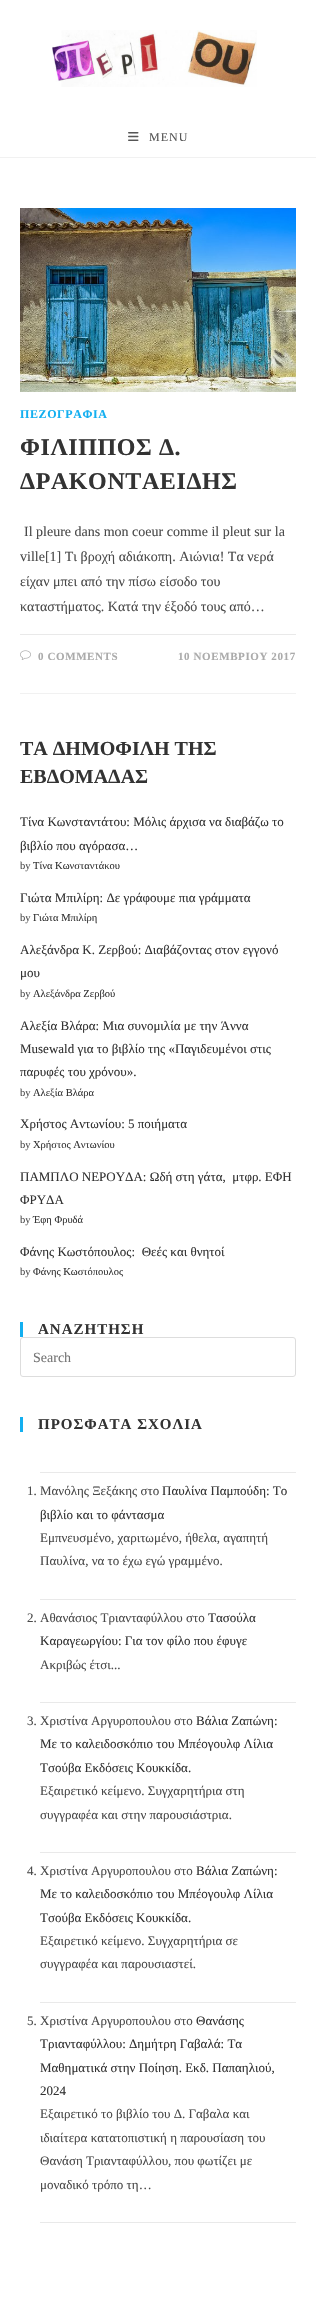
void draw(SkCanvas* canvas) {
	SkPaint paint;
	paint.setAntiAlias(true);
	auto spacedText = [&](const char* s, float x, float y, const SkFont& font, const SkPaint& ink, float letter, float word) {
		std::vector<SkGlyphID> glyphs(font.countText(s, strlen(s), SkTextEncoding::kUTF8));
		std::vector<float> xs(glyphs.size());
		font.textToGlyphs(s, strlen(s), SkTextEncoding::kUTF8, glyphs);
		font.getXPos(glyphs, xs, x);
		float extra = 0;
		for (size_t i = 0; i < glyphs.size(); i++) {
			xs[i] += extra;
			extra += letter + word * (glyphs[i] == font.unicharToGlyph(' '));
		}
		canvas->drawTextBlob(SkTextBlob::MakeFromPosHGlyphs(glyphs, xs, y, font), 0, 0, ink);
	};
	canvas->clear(0xffffffff);
	paint.setColor(0xfff1f1f1);
	canvas->drawRect(SkRect::MakeXYWH(0, 157, 316, 1), paint);
	canvas->drawImageRect(SkImages::DeferredFromEncodedData(SkData::MakeFromFileName("img1.png")), SkRect::MakeXYWH(52, 30, 205, 57), SkSamplingOptions());
	canvas->drawImageRect(SkImages::DeferredFromEncodedData(SkData::MakeFromFileName("img2.png")), SkRect::MakeXYWH(128, 132, 11, 9), SkSamplingOptions());
	SkFont f1(fontMgr->matchFamilyStyle("Tinos", SkFontStyle::Normal()), 12);
	f1.setSubpixel(true);
	paint.setColor(0xff555555);
	spacedText("MENU", 149, 141, f1, paint, 1, 0);
	paint.setColor(0xfff1f1f1);
	canvas->drawRect(SkRect::MakeXYWH(20, 693, 276, 1), paint);
	canvas->drawImageRect(SkImages::DeferredFromEncodedData(SkData::MakeFromFileName("img3.png")), SkRect::MakeXYWH(20, 208, 276, 184), SkSamplingOptions());
	SkFont f2(fontMgr->matchFamilyStyle("Tinos", SkFontStyle::Bold()), 12);
	f2.setSubpixel(true);
	paint.setColor(0xff13aff0);
	spacedText("ΠΕΖΟΓΡΑΦΙΑ", 20, 418, f2, paint, 0.6, 0);
	SkFont f3(fontMgr->matchFamilyStyle("Tinos", SkFontStyle::Bold()), 24);
	f3.setSubpixel(true);
	paint.setColor(0xff333333);
	spacedText("ΦΙΛΙΠΠΟΣ Δ.", 20, 455, f3, paint, 0.6, 0);
	spacedText("ΔΡΑΚΟΝΤΑΕΙΔΗΣ", 20, 489, f3, paint, 0.6, 0);
	SkFont f4(fontMgr->matchFamilyStyle("Tinos", SkFontStyle::Normal()), 14);
	f4.setSubpixel(true);
	paint.setColor(0xff4a4a4a);
	canvas->drawString("Il pleure dans mon coeur comme il pleut sur la", 24, 536, f4, paint);
	canvas->drawString("ville[1] Τι βροχή αδιάκοπη. Αιώνια! Τα νερά", 20, 561, f4, paint);
	canvas->drawString("είχαν μπει από την πίσω είσοδο του", 20, 586, f4, paint);
	canvas->drawString("καταστήματος. Κατά την έξοδό τους από…", 20, 611, f4, paint);
	paint.setColor(0xffe9e9e9);
	canvas->drawRect(SkRect::MakeXYWH(20, 634, 276, 1), paint);
	canvas->drawImageRect(SkImages::DeferredFromEncodedData(SkData::MakeFromFileName("img4.png")), SkRect::MakeXYWH(20, 650, 11, 10), SkSamplingOptions());
	SkFont f5(fontMgr->matchFamilyStyle("Tinos", SkFontStyle::Bold()), 11);
	f5.setSubpixel(true);
	paint.setColor(0xffababab);
	spacedText("0 COMMENTS", 38, 660, f5, paint, 0.6, 0);
	spacedText("10 ΝΟΕΜΒΡΙΟΥ 2017", 178, 660, f5, paint, 0.6, 0);
	SkFont f6(fontMgr->matchFamilyStyle("Tinos", SkFontStyle::Bold()), 20);
	f6.setSubpixel(true);
	paint.setColor(0xff333333);
	canvas->drawString("ΤΑ ΔΗΜΟΦΙΛΗ ΤΗΣ", 20, 755, f6, paint);
	canvas->drawString("ΕΒΔΟΜΑΔΑΣ", 20, 783, f6, paint);
	SkFont f7(fontMgr->matchFamilyStyle("Tinos", SkFontStyle::Normal()), 13);
	f7.setSubpixel(true);
	canvas->drawString("Τίνα Κωνσταντάτου: Μόλις άρχισα να διαβάζω το", 20, 826, f7, paint);
	canvas->drawString("βιβλίο που αγόρασα…", 20, 850, f7, paint);
	SkFont f8(fontMgr->matchFamilyStyle("Tinos", SkFontStyle::Normal()), 10.5);
	f8.setSubpixel(true);
	paint.setColor(0xff4a4a4a);
	canvas->drawString("by", 20, 869, f8, paint);
	paint.setColor(0xff333333);
	canvas->drawString("Τίνα Κωνσταντάκου", 33, 869, f8, paint);
	canvas->drawString("Γιώτα Μπιλίρη: Δε γράφουμε πια γράμματα", 20, 902, f7, paint);
	paint.setColor(0xff4a4a4a);
	canvas->drawString("by", 20, 921, f8, paint);
	paint.setColor(0xff333333);
	canvas->drawString("Γιώτα Μπιλίρη", 33, 921, f8, paint);
	canvas->drawString("Αλεξάνδρα Κ. Ζερβού: Διαβάζοντας στον εγγονό", 20, 954, f7, paint);
	canvas->drawString("μου", 20, 977, f7, paint);
	paint.setColor(0xff4a4a4a);
	canvas->drawString("by", 20, 997, f8, paint);
	paint.setColor(0xff333333);
	canvas->drawString("Αλεξάνδρα Ζερβού", 33, 997, f8, paint);
	canvas->drawString("Αλεξία Βλάρα: Μια συνομιλία με την Άννα", 20, 1030, f7, paint);
	canvas->drawString("Musewald για το βιβλίο της «Παγιδευμένοι στις", 20, 1053, f7, paint);
	canvas->drawString("παρυφές του χρόνου».", 20, 1076, f7, paint);
	paint.setColor(0xff4a4a4a);
	canvas->drawString("by", 20, 1096, f8, paint);
	paint.setColor(0xff333333);
	canvas->drawString("Αλεξία Βλάρα", 33, 1096, f8, paint);
	canvas->drawString("Χρήστος Αντωνίου: 5 ποιήματα", 20, 1128, f7, paint);
	paint.setColor(0xff4a4a4a);
	canvas->drawString("by", 20, 1148, f8, paint);
	paint.setColor(0xff333333);
	canvas->drawString("Χρήστος Αντωνίου", 33, 1148, f8, paint);
	canvas->drawString("ΠΑΜΠΛΟ ΝΕΡΟΥΔΑ: Ωδή στη γάτα,  μτφρ. ΕΦΗ", 20, 1181, f7, paint);
	canvas->drawString("ΦΡΥΔΑ", 20, 1204, f7, paint);
	paint.setColor(0xff4a4a4a);
	canvas->drawString("by", 20, 1223, f8, paint);
	paint.setColor(0xff333333);
	canvas->drawString("Έφη Φρυδά", 33, 1223, f8, paint);
	canvas->drawString("Φάνης Κωστόπουλος:  Θεές και θνητοί", 20, 1256, f7, paint);
	paint.setColor(0xff4a4a4a);
	canvas->drawString("by", 20, 1275, f8, paint);
	paint.setColor(0xff333333);
	canvas->drawString("Φάνης Κωστόπουλος", 33, 1275, f8, paint);
	paint.setColor(0xff13aff0);
	canvas->drawRect(SkRect::MakeXYWH(20, 1322, 3, 15), paint);
	SkFont f9(fontMgr->matchFamilyStyle("Tinos", SkFontStyle::Bold()), 15);
	f9.setSubpixel(true);
	paint.setColor(0xff333333);
	spacedText("ΑΝΑΖΗΤΗΣΗ", 38, 1334, f9, paint, 1, 0);
	paint.setStroke(true);
	paint.setStrokeWidth(1);
	paint.setColor(0xffdddddd);
	canvas->drawRoundRect(SkRect::MakeXYWH(20.5, 1337.5, 275, 39), 2.5, 2.5, paint);
	paint.setStroke(false);
	paint.setColor(0xff757575);
	canvas->drawString("Search", 33, 1362, f4, paint);
	paint.setColor(0xff13aff0);
	canvas->drawRect(SkRect::MakeXYWH(20, 1417, 3, 15), paint);
	paint.setColor(0xff333333);
	spacedText("ΠΡΟΣΦΑΤΑ ΣΧΟΛΙΑ", 38, 1429, f9, paint, 1, 0);
	paint.setColor(0xffe9e9e9);
	canvas->drawRect(SkRect::MakeXYWH(40, 1472, 256, 1), paint);
	canvas->drawRect(SkRect::MakeXYWH(40, 1599, 256, 1), paint);
	paint.setColor(0xff4a4a4a);
	canvas->drawString("1. Μανόλης Ξεξάκης στο", 27, 1495, f7, paint);
	paint.setColor(0xff333333);
	canvas->drawString("Παυλίνα Παμπούδη: Το", 162, 1495, f7, paint);
	canvas->drawString("βιβλίο και το φάντασμα", 40, 1519, f7, paint);
	paint.setColor(0xff4a4a4a);
	canvas->drawString("Εμπνευσμένο, χαριτωμένο, ήθελα, αγαπητή", 40, 1542, f7, paint);
	canvas->drawString("Παυλίνα, να το έχω εγώ γραμμένο.", 40, 1565, f7, paint);
	paint.setColor(0xffe9e9e9);
	canvas->drawRect(SkRect::MakeXYWH(40, 1702, 256, 1), paint);
	paint.setColor(0xff4a4a4a);
	canvas->drawString("2. Αθανάσιος Τριανταφύλλου στο", 27, 1622, f7, paint);
	paint.setColor(0xff333333);
	canvas->drawString("Τασούλα", 208, 1622, f7, paint);
	canvas->drawString("Καραγεωργίου: Για τον φίλο που έφυγε", 40, 1645, f7, paint);
	paint.setColor(0xff4a4a4a);
	canvas->drawString("Ακριβώς έτσι...", 40, 1669, f7, paint);
	paint.setColor(0xffe9e9e9);
	canvas->drawRect(SkRect::MakeXYWH(40, 1852, 256, 1), paint);
	paint.setColor(0xff4a4a4a);
	canvas->drawString("3. Χριστίνα Αργυροπουλου στο", 27, 1725, f7, paint);
	paint.setColor(0xff333333);
	canvas->drawString("Βάλια Ζαπώνη:", 196, 1725, f7, paint);
	canvas->drawString("Με το καλειδοσκόπιο του Μπέογουλφ Λίλια", 40, 1748, f7, paint);
	canvas->drawString("Τσούβα Εκδόσεις Κουκκίδα.", 40, 1772, f7, paint);
	paint.setColor(0xff4a4a4a);
	canvas->drawString("Εξαιρετικό κείμενο. Συγχαρητήρια στη", 40, 1795, f7, paint);
	canvas->drawString("συγγραφέα και στην παρουσιάστρια.", 40, 1819, f7, paint);
	paint.setColor(0xffe9e9e9);
	canvas->drawRect(SkRect::MakeXYWH(40, 2002, 256, 1), paint);
	paint.setColor(0xff4a4a4a);
	canvas->drawString("4. Χριστίνα Αργυροπουλου στο", 27, 1875, f7, paint);
	paint.setColor(0xff333333);
	canvas->drawString("Βάλια Ζαπώνη:", 196, 1875, f7, paint);
	canvas->drawString("Με το καλειδοσκόπιο του Μπέογουλφ Λίλια", 40, 1898, f7, paint);
	canvas->drawString("Τσούβα Εκδόσεις Κουκκίδα.", 40, 1922, f7, paint);
	paint.setColor(0xff4a4a4a);
	canvas->drawString("Εξαιρετικό κείμενο. Συγχαρητήρια σε", 40, 1945, f7, paint);
	canvas->drawString("συγγραφέα και παρουσιαστεί.", 40, 1968, f7, paint);
	paint.setColor(0xffe9e9e9);
	canvas->drawRect(SkRect::MakeXYWH(40, 2222, 256, 1), paint);
	paint.setColor(0xff4a4a4a);
	canvas->drawString("5. Χριστίνα Αργυροπουλου στο", 27, 2025, f7, paint);
	paint.setColor(0xff333333);
	canvas->drawString("Θανάσης", 196, 2025, f7, paint);
	canvas->drawString("Τριανταφύλλου: Δημήτρη Γαβαλά: Τα", 40, 2048, f7, paint);
	canvas->drawString("Μαθηματικά στην Ποίηση. Εκδ. Παπαηλιού,", 40, 2072, f7, paint);
	canvas->drawString("2024", 40, 2095, f7, paint);
	paint.setColor(0xff4a4a4a);
	canvas->drawString("Εξαιρετικό το βιβλίο του Δ. Γαβαλα και", 40, 2118, f7, paint);
	canvas->drawString("ιδιαίτερα κατατοπιστική η παρουσίαση του", 40, 2142, f7, paint);
	canvas->drawString("Θανάση Τριανταφύλλου, που φωτίζει με", 40, 2165, f7, paint);
	canvas->drawString("μοναδικό τρόπο τη…", 40, 2189, f7, paint);
}
